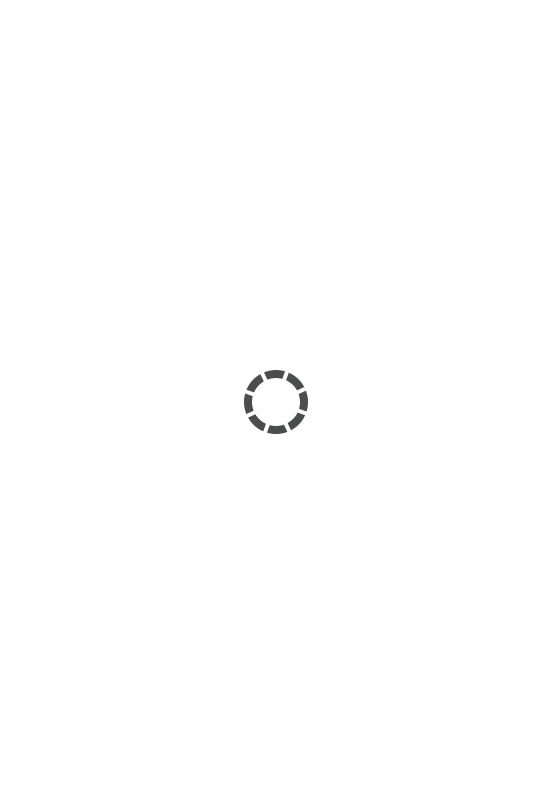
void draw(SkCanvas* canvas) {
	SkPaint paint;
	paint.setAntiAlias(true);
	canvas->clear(0xffffffff);
	canvas->drawImageRect(SkImages::DeferredFromEncodedData(SkData::MakeFromFileName("img1.png")), SkRect::MakeXYWH(244, 370, 64, 64), SkSamplingOptions());
}
